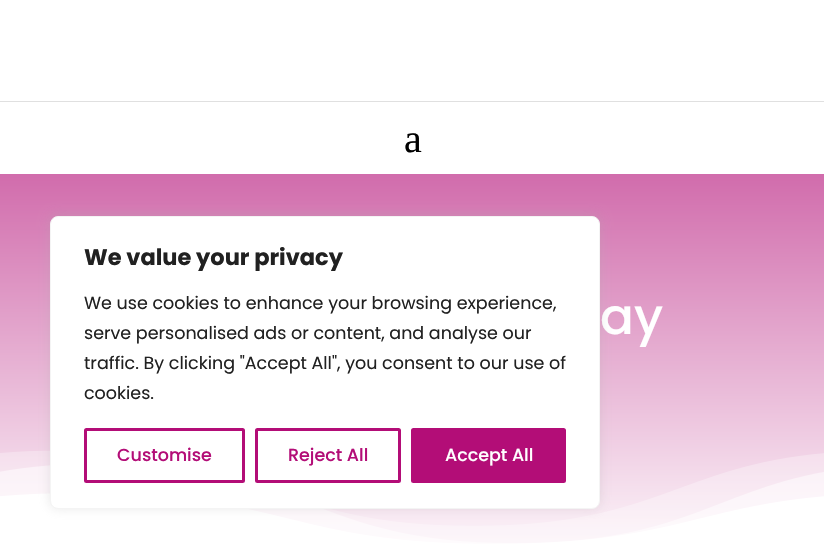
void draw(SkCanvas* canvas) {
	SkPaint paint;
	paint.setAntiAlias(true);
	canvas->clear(0xffffffff);
	paint.setColor(0xffe0e0e0);
	canvas->drawRect(SkRect::MakeXYWH(0, 101, 824, 1), paint);
	SkFont f1(fontMgr->matchFamilyStyle("Liberation Serif", SkFontStyle::Normal()), 40);
	f1.setSubpixel(true);
	paint.setColor(0xff000000);
	canvas->drawString("a", 404, 152, f1, paint);
	{
		const SkColor colors[] = {0xffd16cac, 0xffffffff};
		const float stops[] = {0, 1};
		const SkPoint ends[] = {{413, 174}, {413, 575}};
		paint.setShader(SkGradientShader::MakeLinear(ends, colors, stops, 2, SkTileMode::kClamp));
		paint.setAlpha(255);
	}
	canvas->drawRect(SkRect::MakeXYWH(0, 174, 824, 370), paint);
	SkFont f2(fontMgr->matchFamilyStyle("Poppins", SkFontStyle(500, SkFontStyle::kNormal_Width, SkFontStyle::kUpright_Slant)), 50);
	f2.setSubpixel(true);
	paint.setShader(nullptr);
	paint.setColor(0xffffffff);
	canvas->drawString("ay", 600, 334, f2, paint);
	canvas->drawImageRect(SkImages::DeferredFromEncodedData(SkData::MakeFromFileName("img1.png")), SkRect::MakeXYWH(0, 450, 824, 108), SkSamplingOptions());
	paint.setColor(0x4dacabab);
	paint.setMaskFilter(SkMaskFilter::MakeBlur(kNormal_SkBlurStyle, 6));
	canvas->drawRoundRect(SkRect::MakeXYWH(50, 215, 550, 293), 8, 8, paint);
	paint.setMaskFilter(nullptr);
	paint.setColor(0xffffffff);
	canvas->drawRoundRect(SkRect::MakeXYWH(50.5, 216.5, 549, 292), 7.5, 7.5, paint);
	paint.setStroke(true);
	paint.setStrokeWidth(1);
	paint.setColor(0xfff4f4f4);
	canvas->drawRoundRect(SkRect::MakeXYWH(50.5, 216.5, 549, 292), 7.5, 7.5, paint);
	SkFont f3(fontMgr->matchFamilyStyle("Poppins", SkFontStyle::Bold()), 22.5);
	f3.setSubpixel(true);
	paint.setStroke(false);
	paint.setColor(0xff212121);
	canvas->drawString("We value your privacy", 84, 265, f3, paint);
	SkFont f4(fontMgr->matchFamilyStyle("Poppins", SkFontStyle::Normal()), 17.5);
	f4.setSubpixel(true);
	canvas->drawString("We use cookies to enhance your browsing experience,", 84, 309, f4, paint);
	canvas->drawString("serve personalised ads or content, and analyse our", 84, 339, f4, paint);
	canvas->drawString("traffic. By clicking \"Accept All\", you consent to our use of", 84, 369, f4, paint);
	canvas->drawString("cookies.", 84, 399, f4, paint);
	paint.setStroke(true);
	paint.setStrokeWidth(3);
	paint.setColor(0xffb30d77);
	canvas->drawRoundRect(SkRect::MakeXYWH(85.5, 429.5, 158, 52), 1, 1, paint);
	SkFont f5(fontMgr->matchFamilyStyle("Poppins", SkFontStyle(500, SkFontStyle::kNormal_Width, SkFontStyle::kUpright_Slant)), 17.5);
	f5.setSubpixel(true);
	paint.setStroke(false);
	canvas->drawString("Customise", 117, 461, f5, paint);
	paint.setStroke(true);
	canvas->drawRoundRect(SkRect::MakeXYWH(256.5, 429.5, 143, 52), 1, 1, paint);
	paint.setStroke(false);
	canvas->drawString("Reject All", 288, 461, f5, paint);
	canvas->drawRoundRect(SkRect::MakeXYWH(412.5, 429.5, 152, 52), 1, 1, paint);
	paint.setStroke(true);
	canvas->drawRoundRect(SkRect::MakeXYWH(412.5, 429.5, 152, 52), 1, 1, paint);
	paint.setStroke(false);
	paint.setColor(0xffffffff);
	canvas->drawString("Accept All", 445, 461, f5, paint);
}
